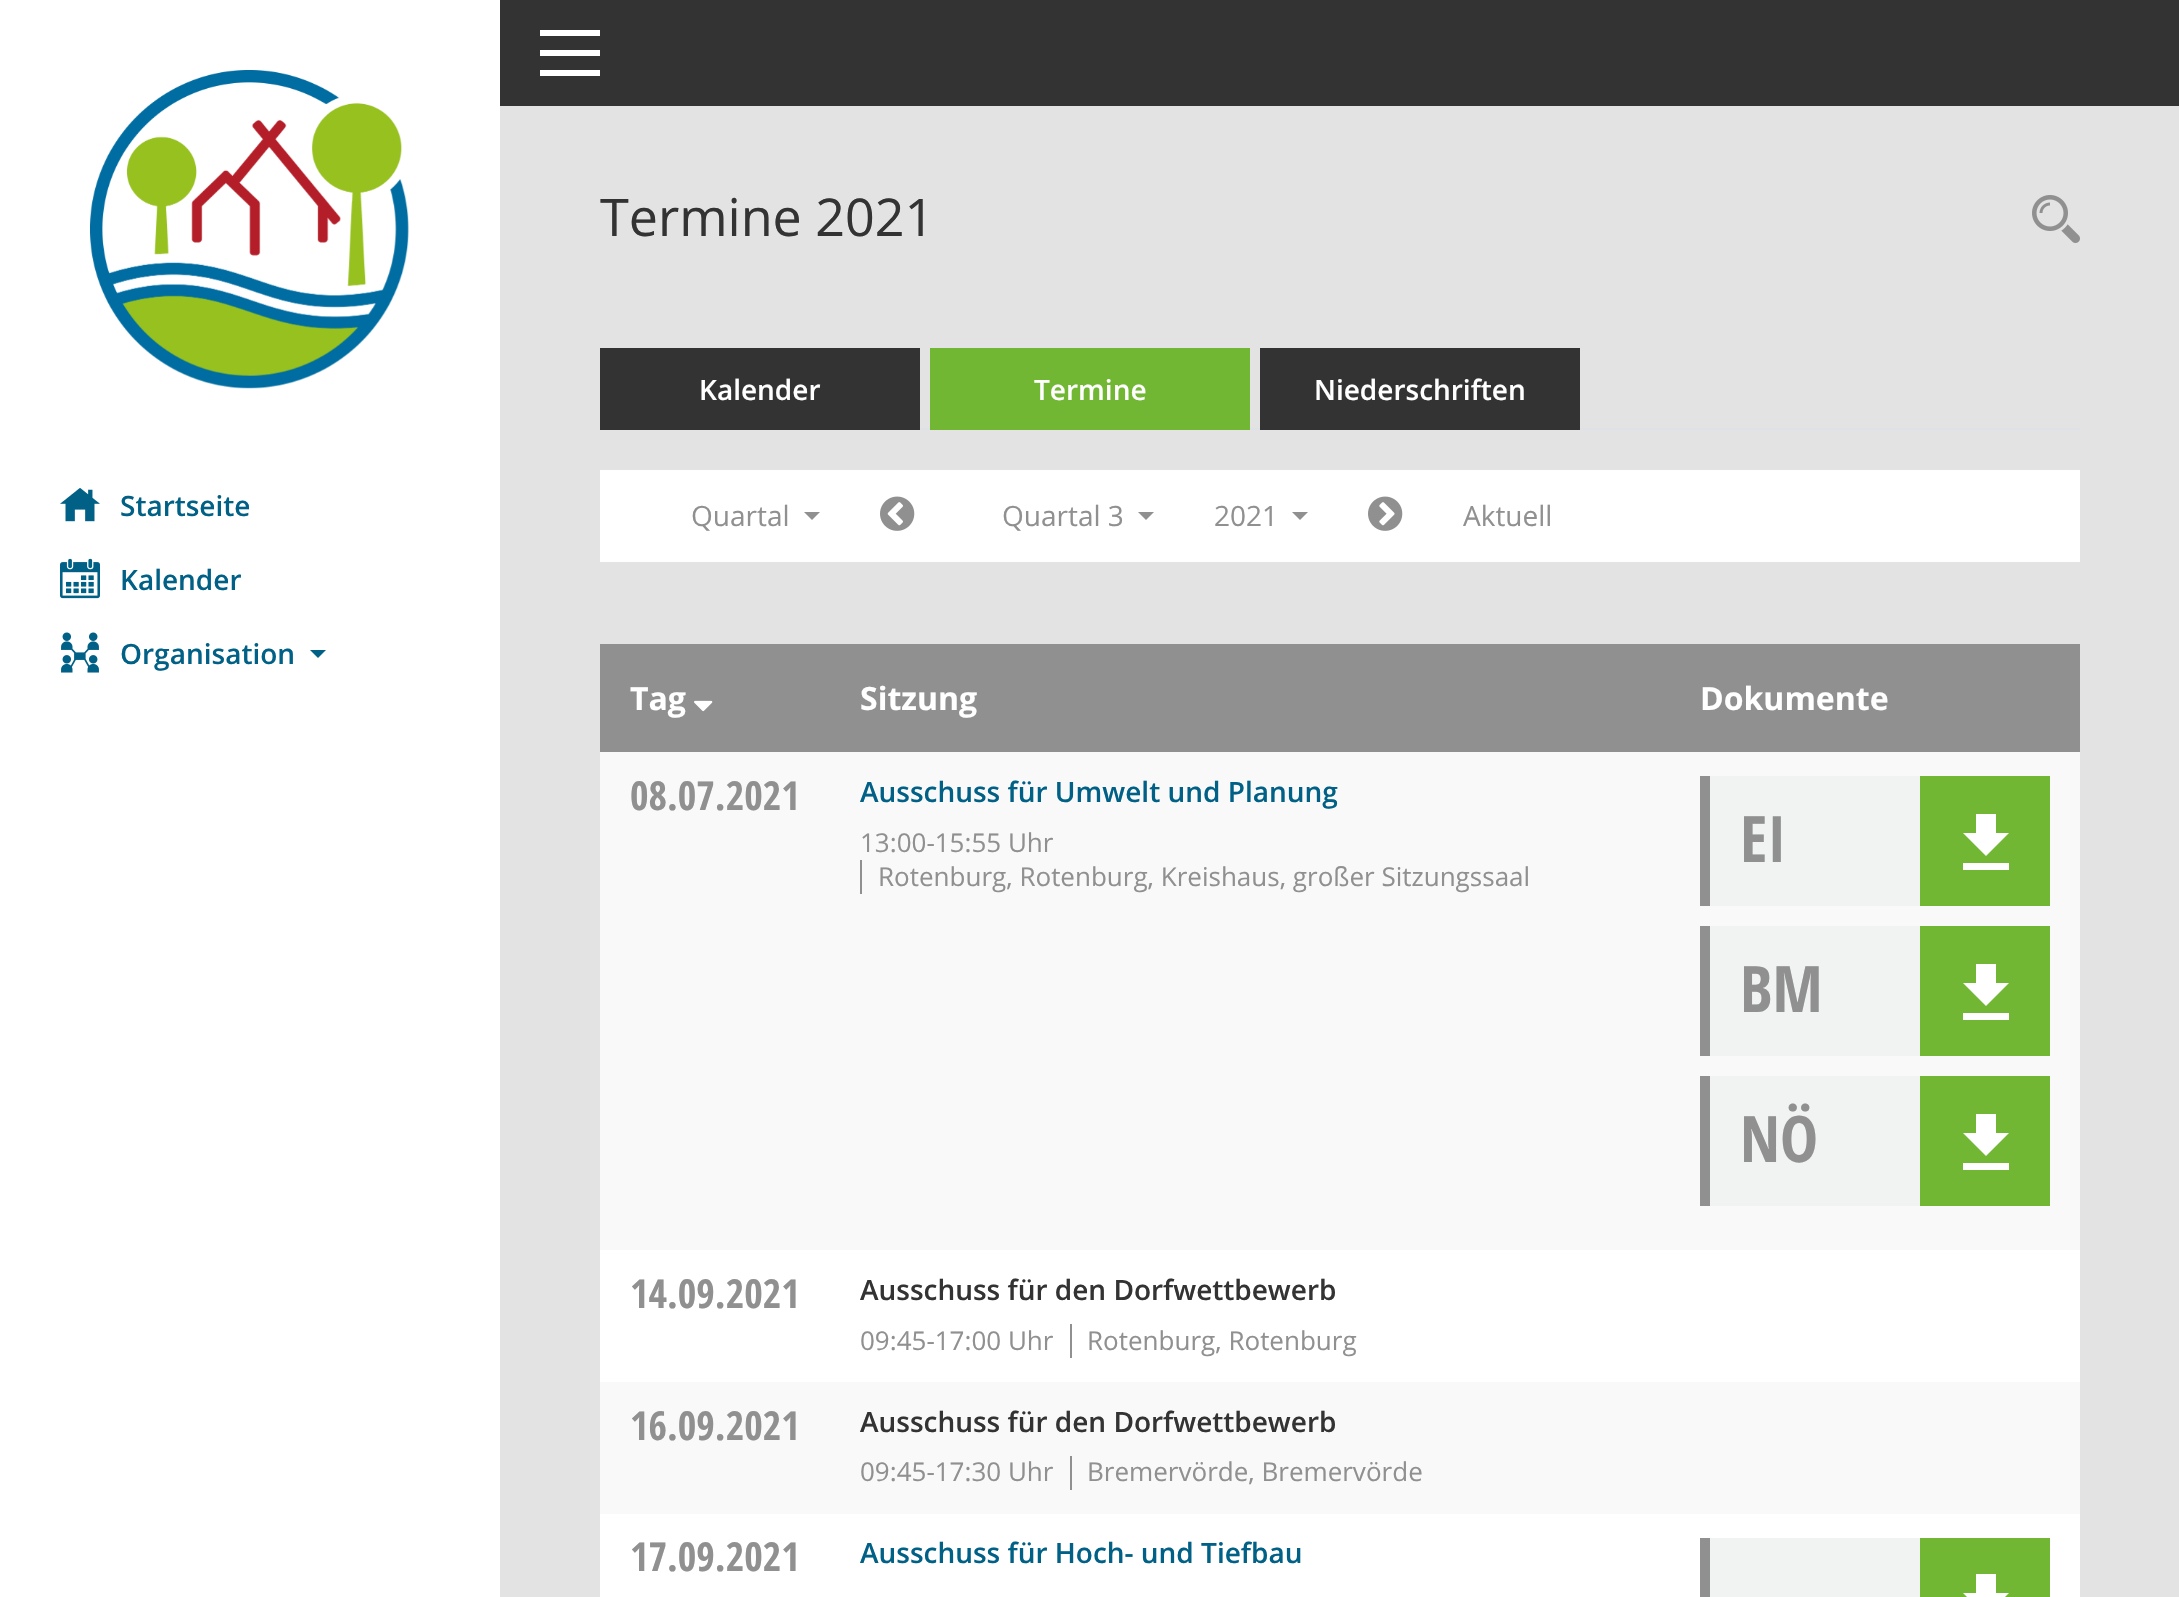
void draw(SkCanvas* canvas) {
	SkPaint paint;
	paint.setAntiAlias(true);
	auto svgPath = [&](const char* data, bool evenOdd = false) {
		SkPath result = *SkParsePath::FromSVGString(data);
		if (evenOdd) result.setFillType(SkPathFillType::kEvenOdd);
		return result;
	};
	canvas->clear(0xffe3e3e3);
	paint.setColor(0xffffffff);
	canvas->drawRect(SkRect::MakeXYWH(0, 0, 500, 1597), paint);
	canvas->drawImageRect(SkImages::DeferredFromEncodedData(SkData::MakeFromFileName("img1.png")), SkRect::MakeXYWH(90, 70, 319, 319), SkSamplingOptions());
	canvas->drawImageRect(SkImages::DeferredFromEncodedData(SkData::MakeFromFileName("img2.png")), SkRect::MakeXYWH(60, 488, 40, 34), SkSamplingOptions());
	SkFont f1(fontMgr->matchFamilyStyle("Open Sans", SkFontStyle(600, SkFontStyle::kNormal_Width, SkFontStyle::kUpright_Slant)), 28);
	f1.setSubpixel(true);
	paint.setColor(0xff006085);
	canvas->drawString("Startseite", 120, 516, f1, paint);
	canvas->drawImageRect(SkImages::DeferredFromEncodedData(SkData::MakeFromFileName("img3.png")), SkRect::MakeXYWH(60, 558, 40, 41), SkSamplingOptions());
	canvas->drawString("Kalender", 120, 590, f1, paint);
	canvas->drawImageRect(SkImages::DeferredFromEncodedData(SkData::MakeFromFileName("img4.png")), SkRect::MakeXYWH(61, 632, 38, 41), SkSamplingOptions());
	canvas->drawString("Organisation", 120, 664, f1, paint);
	canvas->drawPath(svgPath("M310 650H326L318 658Z"), paint);
	paint.setColor(0xff333333);
	canvas->drawRect(SkRect::MakeXYWH(500, 0, 1679, 106), paint);
	paint.setColor(0xffffffff);
	canvas->drawRect(SkRect::MakeXYWH(540, 30, 60, 6), paint);
	canvas->drawRect(SkRect::MakeXYWH(540, 50, 60, 6), paint);
	canvas->drawRect(SkRect::MakeXYWH(540, 70, 60, 6), paint);
	SkFont f2(fontMgr->matchFamilyStyle("Open Sans", SkFontStyle::Normal()), 52);
	f2.setSubpixel(true);
	paint.setColor(0xff333333);
	canvas->drawString("Termine 2021", 600, 236, f2, paint);
	canvas->drawImageRect(SkImages::DeferredFromEncodedData(SkData::MakeFromFileName("img5.png")), SkRect::MakeXYWH(2032, 195, 48, 48), SkSamplingOptions());
	paint.setColor(0xffdee2e6);
	canvas->drawRect(SkRect::MakeXYWH(920, 428, 1160, 2), paint);
	paint.setColor(0xff333333);
	canvas->drawRect(SkRect::MakeXYWH(600, 348, 320, 82), paint);
	paint.setColor(0xffffffff);
	canvas->drawString("Kalender", 699, 400, f1, paint);
	paint.setColor(0xff71b733);
	canvas->drawRect(SkRect::MakeXYWH(930, 348, 320, 82), paint);
	paint.setColor(0xffffffff);
	canvas->drawString("Termine", 1034, 400, f1, paint);
	paint.setColor(0xff333333);
	canvas->drawRect(SkRect::MakeXYWH(1260, 348, 320, 82), paint);
	paint.setColor(0xffffffff);
	canvas->drawString("Niederschriften", 1314, 400, f1, paint);
	canvas->drawRect(SkRect::MakeXYWH(600, 470, 1480, 92), paint);
	SkFont f3(fontMgr->matchFamilyStyle("Open Sans", SkFontStyle::Normal()), 28);
	f3.setSubpixel(true);
	paint.setColor(0xff909090);
	canvas->drawString("Quartal", 691, 526, f3, paint);
	canvas->drawPath(svgPath("M804 512H820L812 520Z"), paint);
	canvas->drawImageRect(SkImages::DeferredFromEncodedData(SkData::MakeFromFileName("img6.png")), SkRect::MakeXYWH(880, 496, 35, 35), SkSamplingOptions());
	canvas->drawString("Quartal 3", 1002, 526, f3, paint);
	canvas->drawPath(svgPath("M1138 512H1154L1146 520Z"), paint);
	canvas->drawString("2021", 1214, 526, f3, paint);
	canvas->drawPath(svgPath("M1292 512H1308L1300 520Z"), paint);
	canvas->drawImageRect(SkImages::DeferredFromEncodedData(SkData::MakeFromFileName("img7.png")), SkRect::MakeXYWH(1368, 496, 35, 35), SkSamplingOptions());
	canvas->drawString("Aktuell", 1463, 526, f3, paint);
	paint.setColor(0xffffffff);
	canvas->drawRect(SkRect::MakeXYWH(600, 1250, 1480, 347), paint);
	paint.setColor(0xff909090);
	canvas->drawRect(SkRect::MakeXYWH(600, 644, 1480, 108), paint);
	SkFont f4(fontMgr->matchFamilyStyle("Open Sans", SkFontStyle::Bold()), 32);
	f4.setSubpixel(true);
	paint.setColor(0xffffffff);
	canvas->drawString("Tag", 630, 710, f4, paint);
	canvas->drawImageRect(SkImages::DeferredFromEncodedData(SkData::MakeFromFileName("img8.png")), SkRect::MakeXYWH(694, 700, 19, 12), SkSamplingOptions());
	canvas->drawString("Sitzung", 860, 710, f4, paint);
	canvas->drawString("Dokumente", 1700, 710, f4, paint);
	paint.setColor(0xfff9f9f9);
	canvas->drawRect(SkRect::MakeXYWH(600, 752, 1480, 498), paint);
	SkFont f5(fontMgr->matchFamilyStyle("Open Sans Condensed", SkFontStyle::Bold()), 40);
	f5.setSubpixel(true);
	paint.setColor(0xff909090);
	canvas->drawString("08.07.2021", 630, 810, f5, paint);
	paint.setColor(0xff006085);
	canvas->drawString("Ausschuss für Umwelt und Planung", 860, 802, f1, paint);
	SkFont f6(fontMgr->matchFamilyStyle("Open Sans", SkFontStyle::Normal()), 26);
	f6.setSubpixel(true);
	paint.setColor(0xff909090);
	canvas->drawString("13:00-15:55 Uhr", 860, 852, f6, paint);
	canvas->drawRect(SkRect::MakeXYWH(860, 860, 2, 34), paint);
	canvas->drawString("Rotenburg, Rotenburg, Kreishaus, großer Sitzungssaal", 878, 886, f6, paint);
	paint.setColor(0xfff0f3f2);
	canvas->drawRect(SkRect::MakeXYWH(1710, 776, 210, 130), paint);
	paint.setColor(0xff909090);
	canvas->drawRect(SkRect::MakeXYWH(1700, 776, 10, 130), paint);
	SkFont f7(fontMgr->matchFamilyStyle("Open Sans Condensed", SkFontStyle::Bold()), 64);
	f7.setSubpixel(true);
	canvas->drawString("EI", 1740, 862, f7, paint);
	paint.setColor(0xff71b733);
	canvas->drawRect(SkRect::MakeXYWH(1920, 776, 130, 130), paint);
	paint.setColor(0xffffffff);
	canvas->drawPath(svgPath("M2009 833H1996V814H1976V833H1963L1986 856ZM1963 863V870H2009V863Z"), paint);
	paint.setColor(0xfff0f3f2);
	canvas->drawRect(SkRect::MakeXYWH(1710, 926, 210, 130), paint);
	paint.setColor(0xff909090);
	canvas->drawRect(SkRect::MakeXYWH(1700, 926, 10, 130), paint);
	canvas->drawString("BM", 1740, 1012, f7, paint);
	paint.setColor(0xff71b733);
	canvas->drawRect(SkRect::MakeXYWH(1920, 926, 130, 130), paint);
	paint.setColor(0xffffffff);
	canvas->drawPath(svgPath("M2009 983H1996V964H1976V983H1963L1986 1006ZM1963 1013V1020H2009V1013Z"), paint);
	paint.setColor(0xfff0f3f2);
	canvas->drawRect(SkRect::MakeXYWH(1710, 1076, 210, 130), paint);
	paint.setColor(0xff909090);
	canvas->drawRect(SkRect::MakeXYWH(1700, 1076, 10, 130), paint);
	canvas->drawString("NÖ", 1740, 1162, f7, paint);
	paint.setColor(0xff71b733);
	canvas->drawRect(SkRect::MakeXYWH(1920, 1076, 130, 130), paint);
	paint.setColor(0xffffffff);
	canvas->drawPath(svgPath("M2009 1133H1996V1114H1976V1133H1963L1986 1156ZM1963 1163V1170H2009V1163Z"), paint);
	paint.setColor(0xff909090);
	canvas->drawString("14.09.2021", 630, 1308, f5, paint);
	paint.setColor(0xff333333);
	canvas->drawString("Ausschuss für den Dorfwettbewerb", 860, 1300, f1, paint);
	paint.setColor(0xff909090);
	canvas->drawString("09:45-17:00 Uhr", 860, 1350, f6, paint);
	canvas->drawRect(SkRect::MakeXYWH(1070, 1324, 2, 34), paint);
	canvas->drawString("Rotenburg, Rotenburg", 1087, 1350, f6, paint);
	paint.setColor(0xfff9f9f9);
	canvas->drawRect(SkRect::MakeXYWH(600, 1382, 1480, 132), paint);
	paint.setColor(0xff909090);
	canvas->drawString("16.09.2021", 630, 1440, f5, paint);
	paint.setColor(0xff333333);
	canvas->drawString("Ausschuss für den Dorfwettbewerb", 860, 1432, f1, paint);
	paint.setColor(0xff909090);
	canvas->drawString("09:45-17:30 Uhr", 860, 1481, f6, paint);
	canvas->drawRect(SkRect::MakeXYWH(1070, 1456, 2, 34), paint);
	canvas->drawString("Bremervörde, Bremervörde", 1087, 1481, f6, paint);
	canvas->drawString("17.09.2021", 630, 1571, f5, paint);
	paint.setColor(0xff006085);
	canvas->drawString("Ausschuss für Hoch- und Tiefbau", 860, 1563, f1, paint);
	paint.setColor(0xfff0f3f2);
	canvas->drawRect(SkRect::MakeXYWH(1710, 1538, 210, 59), paint);
	paint.setColor(0xff909090);
	canvas->drawRect(SkRect::MakeXYWH(1700, 1538, 10, 59), paint);
	paint.setColor(0xff71b733);
	canvas->drawRect(SkRect::MakeXYWH(1920, 1538, 130, 59), paint);
	paint.setColor(0xffffffff);
	canvas->drawPath(svgPath("M2009 1593H1996V1574H1976V1593H1963L1986 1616ZM1963 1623V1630H2009V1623Z"), paint);
}
